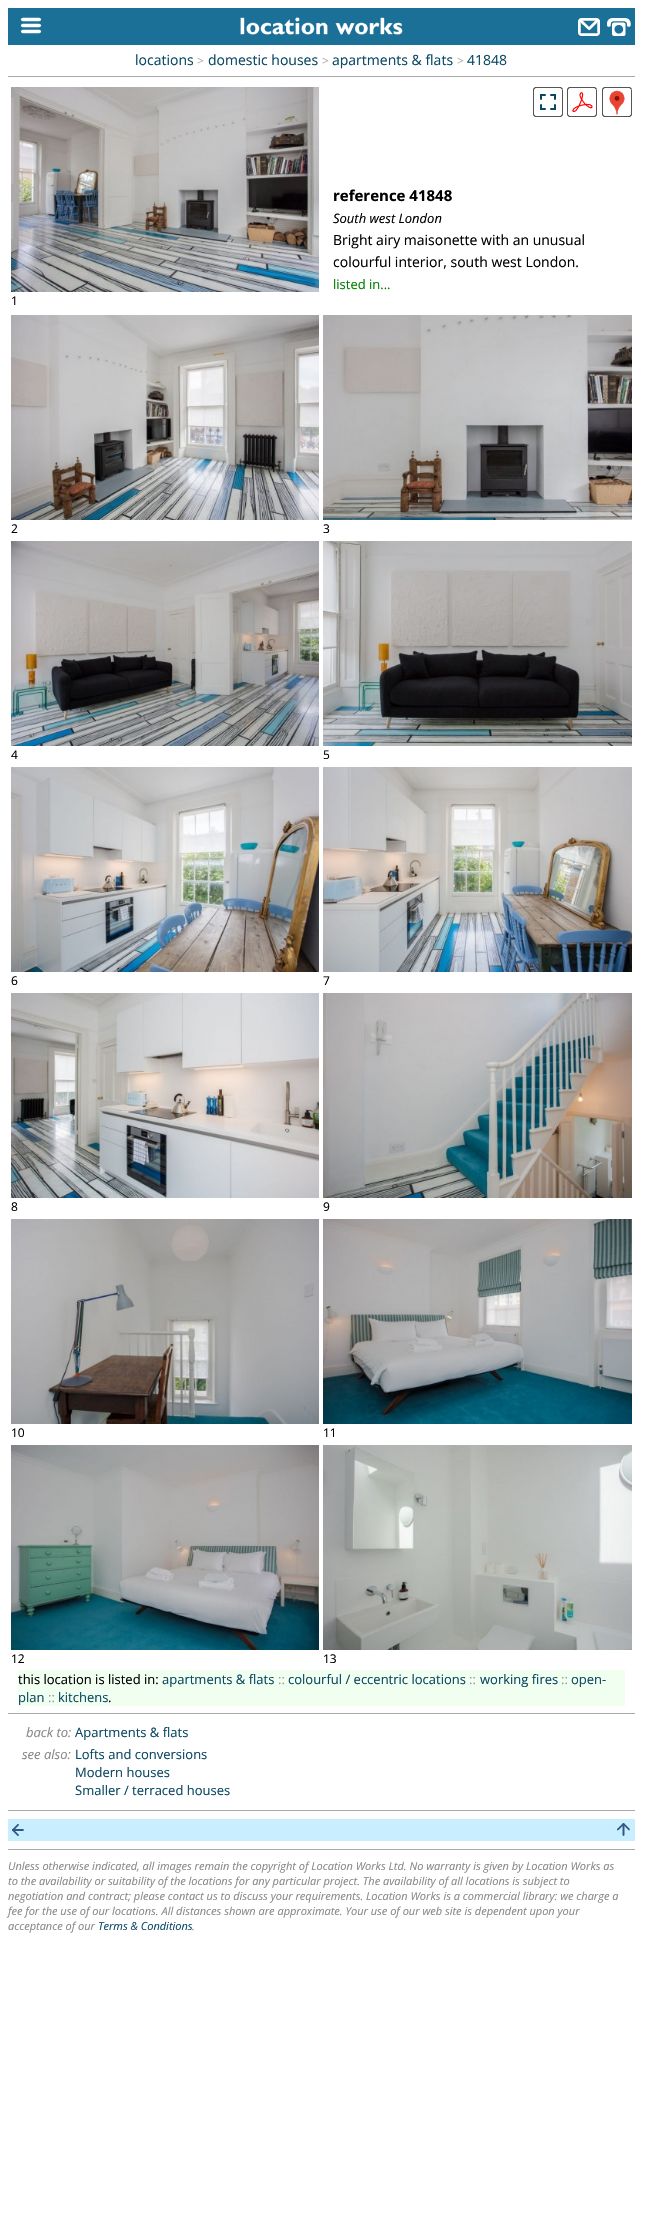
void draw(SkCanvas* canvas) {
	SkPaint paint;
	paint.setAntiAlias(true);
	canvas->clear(0xffffffff);
	paint.setColor(0xff1b7097);
	canvas->drawRect(SkRect::MakeXYWH(8, 8, 627, 37), paint);
	canvas->drawImageRect(SkImages::DeferredFromEncodedData(SkData::MakeFromFileName("img1.png")), SkRect::MakeXYWH(20, 17, 22, 17), SkSamplingOptions());
	canvas->drawImageRect(SkImages::DeferredFromEncodedData(SkData::MakeFromFileName("img2.png")), SkRect::MakeXYWH(240, 17, 163, 18), SkSamplingOptions());
	canvas->drawImageRect(SkImages::DeferredFromEncodedData(SkData::MakeFromFileName("img3.png")), SkRect::MakeXYWH(578, 18, 22, 18), SkSamplingOptions());
	canvas->drawImageRect(SkImages::DeferredFromEncodedData(SkData::MakeFromFileName("img4.png")), SkRect::MakeXYWH(607, 18, 24, 18), SkSamplingOptions());
	SkFont f1(fontMgr->matchFamilyStyle("Open Sans", SkFontStyle::Normal()), 14);
	f1.setSubpixel(true);
	paint.setColor(0xff0c4964);
	canvas->drawString("locations", 135, 65, f1, paint);
	SkFont f2(fontMgr->matchFamilyStyle("Open Sans", SkFontStyle::Normal()), 12);
	f2.setSubpixel(true);
	paint.setColor(0xffaaaaaa);
	canvas->drawString(">", 197, 65, f2, paint);
	paint.setColor(0xff0c4964);
	canvas->drawString("domestic houses", 208, 65, f1, paint);
	paint.setColor(0xffaaaaaa);
	canvas->drawString(">", 322, 65, f2, paint);
	paint.setColor(0xff0c4964);
	canvas->drawString("apartments & flats", 332, 65, f1, paint);
	paint.setColor(0xffaaaaaa);
	canvas->drawString(">", 457, 65, f2, paint);
	paint.setColor(0xff0c4964);
	canvas->drawString("41848", 467, 65, f1, paint);
	paint.setColor(0xffaaaaaa);
	canvas->drawRect(SkRect::MakeXYWH(8, 76, 627, 1), paint);
	SkFont f3(fontMgr->matchFamilyStyle("Open Sans", SkFontStyle::Bold()), 15);
	f3.setSubpixel(true);
	paint.setColor(0xff000000);
	canvas->drawString("reference 41848", 333, 201, f3, paint);
	SkFont f4(fontMgr->matchFamilyStyle("Open Sans", SkFontStyle::Italic()), 13);
	f4.setSubpixel(true);
	canvas->drawString("South west London", 333, 223, f4, paint);
	canvas->drawString("Bright airy maisonette with an unusual", 333, 245, f1, paint);
	canvas->drawString("colourful interior, south west London.", 333, 267, f1, paint);
	SkFont f5(fontMgr->matchFamilyStyle("Open Sans", SkFontStyle::Normal()), 13);
	f5.setSubpixel(true);
	paint.setColor(0xff008000);
	canvas->drawString("listed in...", 333, 289, f5, paint);
	canvas->drawImageRect(SkImages::DeferredFromEncodedData(SkData::MakeFromFileName("img5.png")), SkRect::MakeXYWH(533, 87, 30, 30), SkSamplingOptions());
	canvas->drawImageRect(SkImages::DeferredFromEncodedData(SkData::MakeFromFileName("img6.png")), SkRect::MakeXYWH(567, 87, 30, 30), SkSamplingOptions());
	canvas->drawImageRect(SkImages::DeferredFromEncodedData(SkData::MakeFromFileName("img7.png")), SkRect::MakeXYWH(602, 87, 30, 30), SkSamplingOptions());
	canvas->drawImageRect(SkImages::DeferredFromEncodedData(SkData::MakeFromFileName("img8.png")), SkRect::MakeXYWH(11, 87, 308, 205), SkSamplingOptions());
	paint.setColor(0xff000000);
	canvas->drawString("1", 11, 305, f2, paint);
	canvas->drawImageRect(SkImages::DeferredFromEncodedData(SkData::MakeFromFileName("img9.png")), SkRect::MakeXYWH(11, 315, 308, 205), SkSamplingOptions());
	canvas->drawString("2", 11, 533, f2, paint);
	canvas->drawImageRect(SkImages::DeferredFromEncodedData(SkData::MakeFromFileName("img10.png")), SkRect::MakeXYWH(323, 315, 309, 205), SkSamplingOptions());
	canvas->drawString("3", 323, 533, f2, paint);
	canvas->drawImageRect(SkImages::DeferredFromEncodedData(SkData::MakeFromFileName("img11.png")), SkRect::MakeXYWH(11, 541, 308, 205), SkSamplingOptions());
	canvas->drawString("4", 11, 759, f2, paint);
	canvas->drawImageRect(SkImages::DeferredFromEncodedData(SkData::MakeFromFileName("img12.png")), SkRect::MakeXYWH(323, 541, 309, 205), SkSamplingOptions());
	canvas->drawString("5", 323, 759, f2, paint);
	canvas->drawImageRect(SkImages::DeferredFromEncodedData(SkData::MakeFromFileName("img13.png")), SkRect::MakeXYWH(11, 767, 308, 205), SkSamplingOptions());
	canvas->drawString("6", 11, 985, f2, paint);
	canvas->drawImageRect(SkImages::DeferredFromEncodedData(SkData::MakeFromFileName("img14.png")), SkRect::MakeXYWH(323, 767, 309, 205), SkSamplingOptions());
	canvas->drawString("7", 323, 985, f2, paint);
	canvas->drawImageRect(SkImages::DeferredFromEncodedData(SkData::MakeFromFileName("img15.png")), SkRect::MakeXYWH(11, 993, 308, 205), SkSamplingOptions());
	canvas->drawString("8", 11, 1211, f2, paint);
	canvas->drawImageRect(SkImages::DeferredFromEncodedData(SkData::MakeFromFileName("img16.png")), SkRect::MakeXYWH(323, 993, 309, 205), SkSamplingOptions());
	canvas->drawString("9", 323, 1211, f2, paint);
	canvas->drawImageRect(SkImages::DeferredFromEncodedData(SkData::MakeFromFileName("img17.png")), SkRect::MakeXYWH(11, 1219, 308, 205), SkSamplingOptions());
	canvas->drawString("10", 11, 1437, f2, paint);
	canvas->drawImageRect(SkImages::DeferredFromEncodedData(SkData::MakeFromFileName("img18.png")), SkRect::MakeXYWH(323, 1219, 309, 205), SkSamplingOptions());
	canvas->drawString("11", 323, 1437, f2, paint);
	canvas->drawImageRect(SkImages::DeferredFromEncodedData(SkData::MakeFromFileName("img19.png")), SkRect::MakeXYWH(11, 1445, 308, 205), SkSamplingOptions());
	canvas->drawString("12", 11, 1663, f2, paint);
	canvas->drawImageRect(SkImages::DeferredFromEncodedData(SkData::MakeFromFileName("img20.png")), SkRect::MakeXYWH(323, 1445, 309, 205), SkSamplingOptions());
	canvas->drawString("13", 323, 1663, f2, paint);
	paint.setColor(0xfff1fff1);
	canvas->drawRect(SkRect::MakeXYWH(18, 1670, 607, 36), paint);
	paint.setColor(0xff000000);
	canvas->drawString("this location is listed in:", 18, 1684, f5, paint);
	paint.setColor(0xff0c4964);
	canvas->drawString("apartments & flats", 162, 1684, f5, paint);
	paint.setColor(0xff999999);
	canvas->drawString("::", 278, 1684, f5, paint);
	paint.setColor(0xff0c4964);
	canvas->drawString("colourful / eccentric locations", 288, 1684, f5, paint);
	paint.setColor(0xff999999);
	canvas->drawString("::", 469, 1684, f5, paint);
	paint.setColor(0xff0c4964);
	canvas->drawString("working fires", 480, 1684, f5, paint);
	paint.setColor(0xff999999);
	canvas->drawString("::", 561, 1684, f5, paint);
	paint.setColor(0xff0c4964);
	canvas->drawString("open-", 571, 1684, f5, paint);
	canvas->drawString("plan", 18, 1702, f5, paint);
	paint.setColor(0xff999999);
	canvas->drawString("::", 48, 1702, f5, paint);
	paint.setColor(0xff0c4964);
	canvas->drawString("kitchens", 58, 1702, f5, paint);
	paint.setColor(0xff000000);
	canvas->drawString(".", 108, 1702, f5, paint);
	paint.setColor(0xffaaaaaa);
	canvas->drawRect(SkRect::MakeXYWH(8, 1713, 627, 1), paint);
	paint.setColor(0xff888888);
	canvas->drawString("back to:", 26, 1737, f4, paint);
	paint.setColor(0xff0c4964);
	canvas->drawString("Apartments & flats", 75, 1737, f5, paint);
	paint.setColor(0xff888888);
	canvas->drawString("see also:", 22, 1759, f4, paint);
	paint.setColor(0xff0c4964);
	canvas->drawString("Lofts and conversions", 75, 1759, f5, paint);
	canvas->drawString("Modern houses", 75, 1777, f5, paint);
	canvas->drawString("Smaller / terraced houses", 75, 1795, f5, paint);
	paint.setColor(0xffaaaaaa);
	canvas->drawRect(SkRect::MakeXYWH(8, 1810, 627, 1), paint);
	paint.setColor(0xffc9eeff);
	canvas->drawRect(SkRect::MakeXYWH(8, 1819, 627, 22), paint);
	canvas->drawImageRect(SkImages::DeferredFromEncodedData(SkData::MakeFromFileName("img21.png")), SkRect::MakeXYWH(12, 1824, 13, 12), SkSamplingOptions());
	canvas->drawImageRect(SkImages::DeferredFromEncodedData(SkData::MakeFromFileName("img22.png")), SkRect::MakeXYWH(617, 1823, 13, 13), SkSamplingOptions());
	paint.setColor(0xffaaaaaa);
	canvas->drawRect(SkRect::MakeXYWH(8, 1849, 627, 1), paint);
	SkFont f6(fontMgr->matchFamilyStyle("Open Sans", SkFontStyle::Italic()), 11);
	f6.setSubpixel(true);
	paint.setColor(0xff888888);
	canvas->drawString("Unless otherwise indicated, all images remain the copyright of Location Works Ltd. No warranty is given by Location Works as", 8, 1870, f6, paint);
	canvas->drawString("to the availability or suitability of the locations for any particular project. The availability of all locations is subject to", 8, 1885, f6, paint);
	canvas->drawString("negotiation and contract; please contact us to discuss your requirements. Location Works is a commercial library: we charge a", 8, 1900, f6, paint);
	canvas->drawString("fee for the use of our locations. All distances shown are approximate. Your use of our web site is dependent upon your", 8, 1915, f6, paint);
	canvas->drawString("acceptance of our", 8, 1930, f6, paint);
	paint.setColor(0xff0c4964);
	canvas->drawString("Terms & Conditions", 98, 1930, f6, paint);
	paint.setColor(0xff888888);
	canvas->drawString(".", 192, 1930, f6, paint);
}
